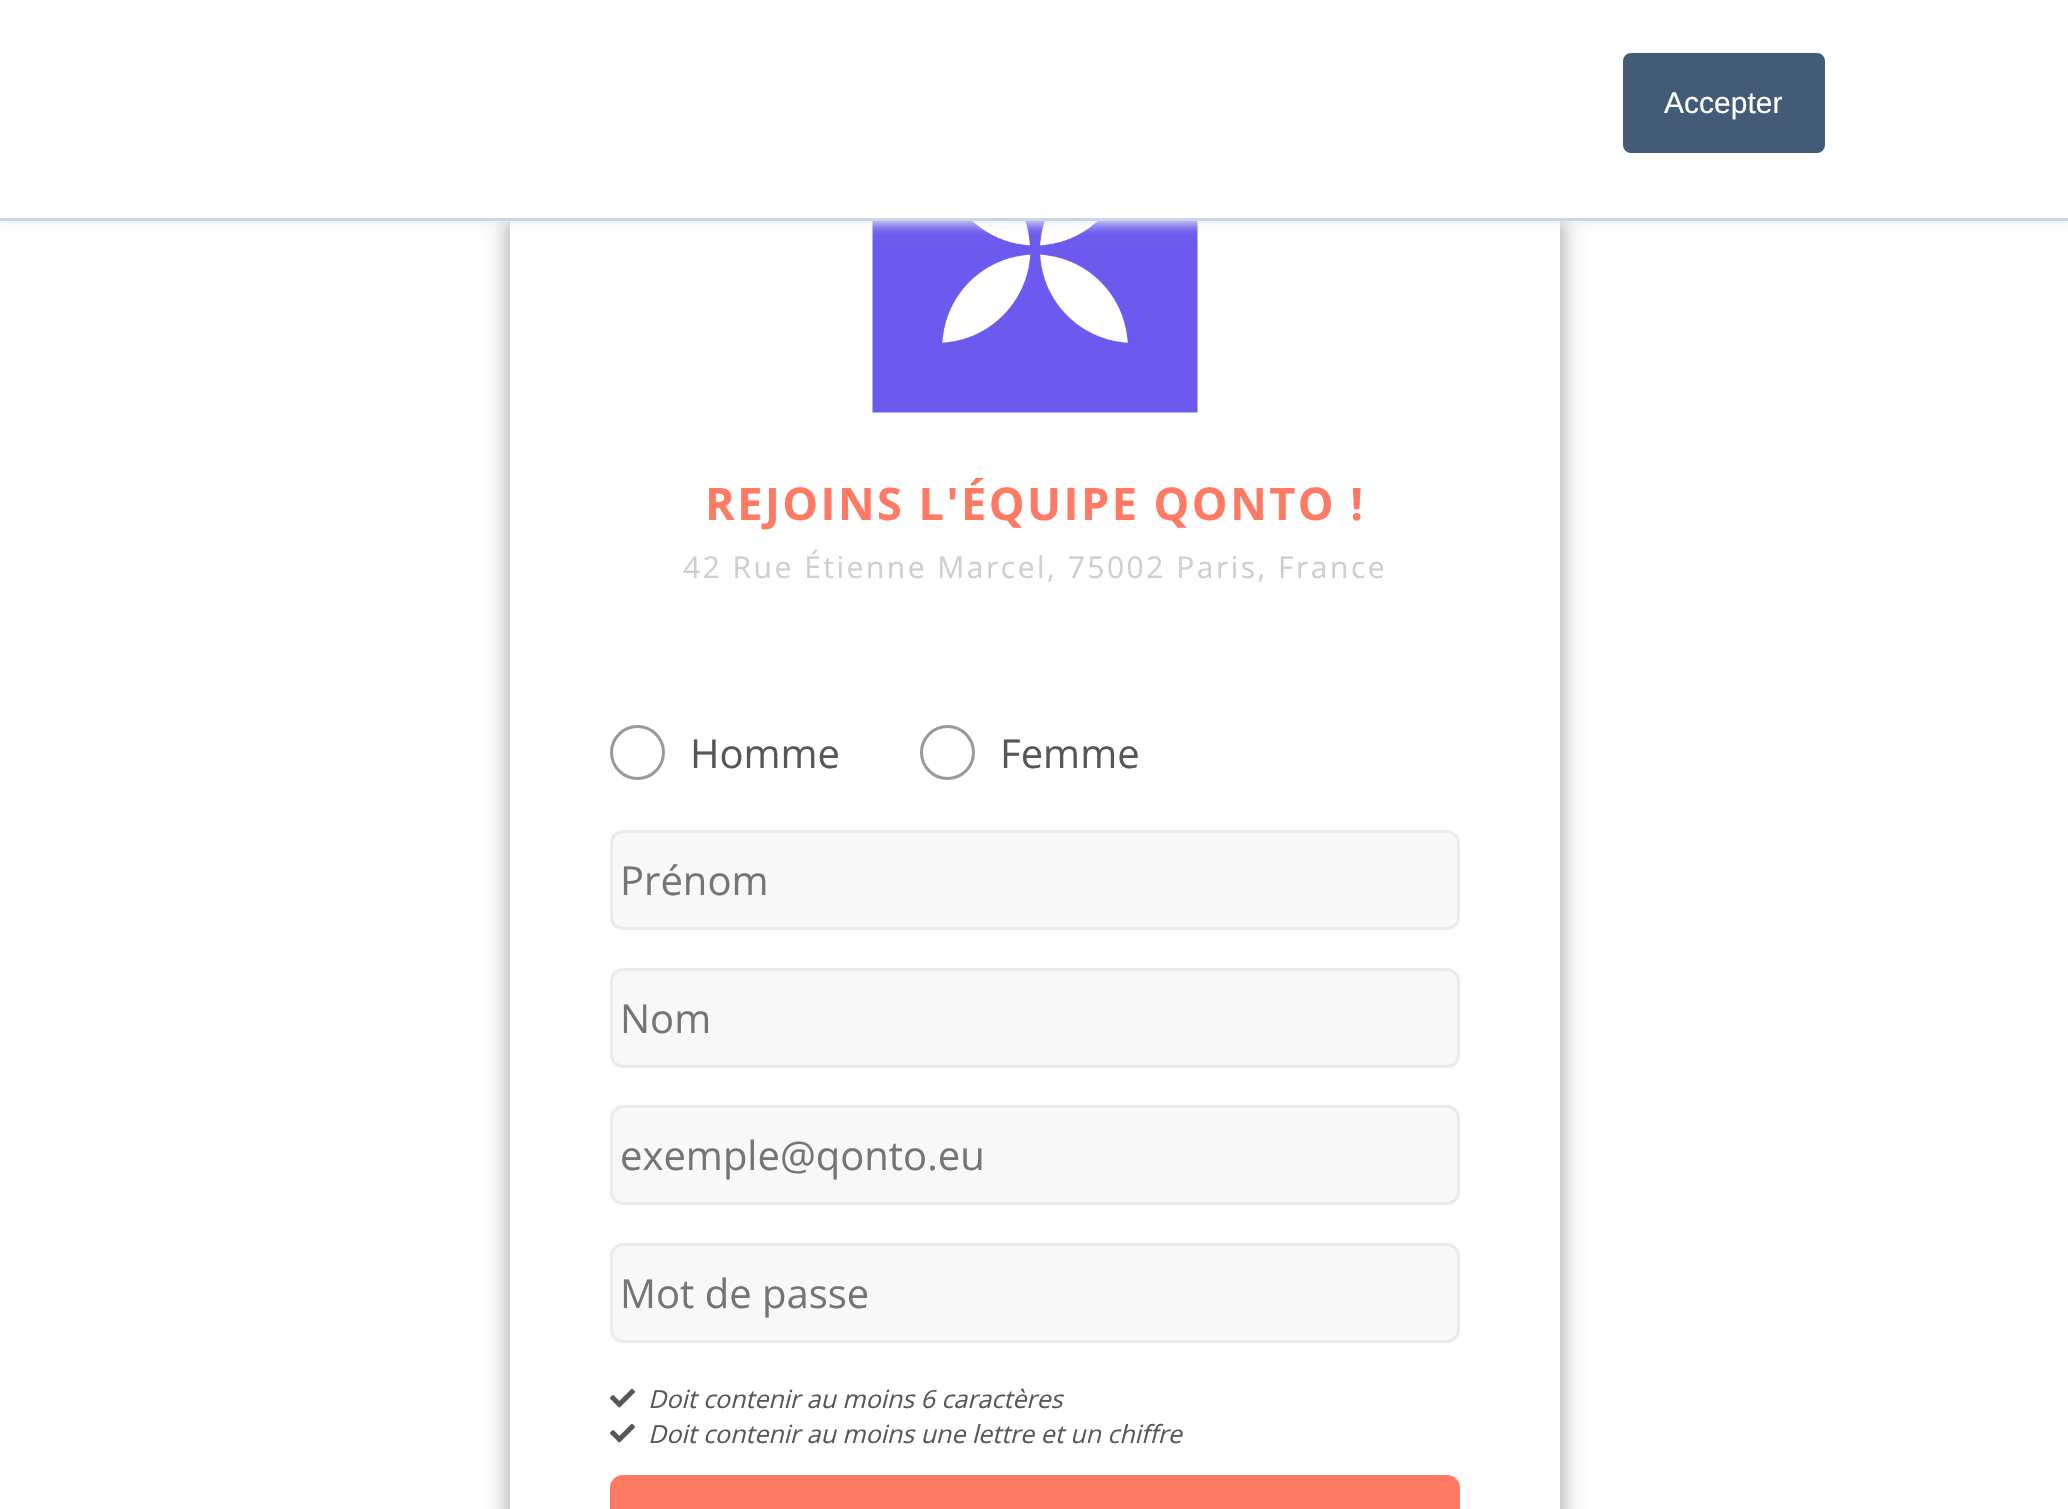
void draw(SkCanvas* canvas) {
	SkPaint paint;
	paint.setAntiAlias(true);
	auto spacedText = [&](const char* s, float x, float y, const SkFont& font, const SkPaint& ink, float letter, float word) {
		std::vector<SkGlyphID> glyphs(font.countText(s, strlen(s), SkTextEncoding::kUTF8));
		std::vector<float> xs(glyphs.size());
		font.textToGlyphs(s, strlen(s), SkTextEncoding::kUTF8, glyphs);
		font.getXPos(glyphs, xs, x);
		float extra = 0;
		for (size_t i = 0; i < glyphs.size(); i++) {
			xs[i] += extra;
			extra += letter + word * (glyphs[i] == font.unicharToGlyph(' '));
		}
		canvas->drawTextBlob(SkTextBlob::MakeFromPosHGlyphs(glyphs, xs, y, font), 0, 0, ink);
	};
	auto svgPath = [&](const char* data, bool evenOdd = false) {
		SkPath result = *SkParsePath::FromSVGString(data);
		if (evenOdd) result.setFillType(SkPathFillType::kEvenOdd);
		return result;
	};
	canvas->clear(0xffffffff);
	canvas->save();
	canvas->clipPath(svgPath("M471 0H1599V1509H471ZM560-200H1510C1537.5-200 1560-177.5 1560-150V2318C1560 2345.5 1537.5 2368 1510 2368H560C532.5 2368 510 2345.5 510 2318V-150C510-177.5 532.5-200 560-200Z", true), true);
	paint.setColor(0xff999999);
	paint.setMaskFilter(SkMaskFilter::MakeBlur(kNormal_SkBlurStyle, 12.5));
	canvas->drawRoundRect(SkRect::MakeXYWH(510, -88, 1050, 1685), 50, 50, paint);
	paint.setMaskFilter(nullptr);
	canvas->restore();
	canvas->drawImageRect(SkImages::DeferredFromEncodedData(SkData::MakeFromFileName("img1.png")), SkRect::MakeXYWH(872, 221, 326, 192), SkSamplingOptions());
	paint.setColor(0xffeaf0f6);
	paint.setMaskFilter(SkMaskFilter::MakeBlur(kNormal_SkBlurStyle, 6));
	canvas->drawRect(SkRect::MakeXYWH(0, -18, 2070, 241), paint);
	paint.setMaskFilter(nullptr);
	paint.setColor(0xffffffff);
	canvas->drawRect(SkRect::MakeXYWH(0, 0, 2068, 218), paint);
	paint.setColor(0xffcbd6e2);
	canvas->drawRect(SkRect::MakeXYWH(0, 218, 2068, 3), paint);
	paint.setColor(0xff425b76);
	canvas->drawRoundRect(SkRect::MakeXYWH(1624.5, 54.5, 199, 97), 6.5, 6.5, paint);
	paint.setStroke(true);
	paint.setStrokeWidth(3);
	canvas->drawRoundRect(SkRect::MakeXYWH(1624.5, 54.5, 199, 97), 6.5, 6.5, paint);
	SkFont f1(fontMgr->matchFamilyStyle("Liberation Sans", SkFontStyle::Normal()), 30);
	f1.setSubpixel(true);
	paint.setStroke(false);
	paint.setColor(0xffffffff);
	canvas->drawString("Accepter", 1664, 113, f1, paint);
	SkFont f2(fontMgr->matchFamilyStyle("Open Sans", SkFontStyle::Bold()), 45);
	f2.setSubpixel(true);
	paint.setColor(0xffff7963);
	spacedText("REJOINS L'ÉQUIPE QONTO !", 705, 520, f2, paint, 2.5, 0);
	SkFont f3(fontMgr->matchFamilyStyle("Open Sans", SkFontStyle::Normal()), 30);
	f3.setSubpixel(true);
	paint.setColor(0xffcecece);
	spacedText("42 Rue Étienne Marcel, 75002 Paris, France", 683, 578, f3, paint, 2.5, 0);
	paint.setStroke(true);
	paint.setColor(0xff999999);
	canvas->drawCircle(637.5, 752.5, 26, paint);
	SkFont f4(fontMgr->matchFamilyStyle("Open Sans", SkFontStyle::Normal()), 40);
	f4.setSubpixel(true);
	paint.setStroke(false);
	paint.setColor(0xff55585a);
	canvas->drawString("Homme", 690, 768, f4, paint);
	paint.setStroke(true);
	paint.setColor(0xff999999);
	canvas->drawCircle(947.5, 752.5, 26, paint);
	paint.setStroke(false);
	paint.setColor(0xff55585a);
	canvas->drawString("Femme", 1000, 768, f4, paint);
	paint.setColor(0xfff8f8f8);
	canvas->drawRoundRect(SkRect::MakeXYWH(611.5, 831.5, 847, 97), 11.5, 11.5, paint);
	paint.setStroke(true);
	paint.setColor(0xffebebeb);
	canvas->drawRoundRect(SkRect::MakeXYWH(611.5, 831.5, 847, 97), 11.5, 11.5, paint);
	paint.setStroke(false);
	paint.setColor(0xff757575);
	canvas->drawString("Prénom", 620, 895, f4, paint);
	paint.setColor(0xfff8f8f8);
	canvas->drawRoundRect(SkRect::MakeXYWH(611.5, 969.5, 847, 97), 11.5, 11.5, paint);
	paint.setStroke(true);
	paint.setColor(0xffebebeb);
	canvas->drawRoundRect(SkRect::MakeXYWH(611.5, 969.5, 847, 97), 11.5, 11.5, paint);
	paint.setStroke(false);
	paint.setColor(0xff757575);
	canvas->drawString("Nom", 620, 1033, f4, paint);
	paint.setColor(0xfff8f8f8);
	canvas->drawRoundRect(SkRect::MakeXYWH(611.5, 1106.5, 847, 97), 11.5, 11.5, paint);
	paint.setStroke(true);
	paint.setColor(0xffebebeb);
	canvas->drawRoundRect(SkRect::MakeXYWH(611.5, 1106.5, 847, 97), 11.5, 11.5, paint);
	paint.setStroke(false);
	paint.setColor(0xff757575);
	canvas->drawString("exemple@qonto.eu", 620, 1170, f4, paint);
	paint.setColor(0xfff8f8f8);
	canvas->drawRoundRect(SkRect::MakeXYWH(611.5, 1244.5, 847, 97), 11.5, 11.5, paint);
	paint.setStroke(true);
	paint.setColor(0xffebebeb);
	canvas->drawRoundRect(SkRect::MakeXYWH(611.5, 1244.5, 847, 97), 11.5, 11.5, paint);
	paint.setStroke(false);
	paint.setColor(0xff757575);
	canvas->drawString("Mot de passe", 620, 1308, f4, paint);
	canvas->drawImageRect(SkImages::DeferredFromEncodedData(SkData::MakeFromFileName("img2.png")), SkRect::MakeXYWH(610, 1388, 25, 20), SkSamplingOptions());
	SkFont f5(fontMgr->matchFamilyStyle("Open Sans", SkFontStyle::Italic()), 25);
	f5.setSubpixel(true);
	paint.setColor(0xff55585a);
	canvas->drawString("Doit contenir au moins 6 caractères", 648, 1408, f5, paint);
	canvas->drawImageRect(SkImages::DeferredFromEncodedData(SkData::MakeFromFileName("img2.png")), SkRect::MakeXYWH(610, 1423, 25, 20), SkSamplingOptions());
	canvas->drawString("Doit contenir au moins une lettre et un chiffre", 648, 1443, f5, paint);
	paint.setColor(0xffff7963);
	canvas->drawRoundRect(SkRect::MakeXYWH(610, 1475, 850, 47), 13, 13, paint);
}
